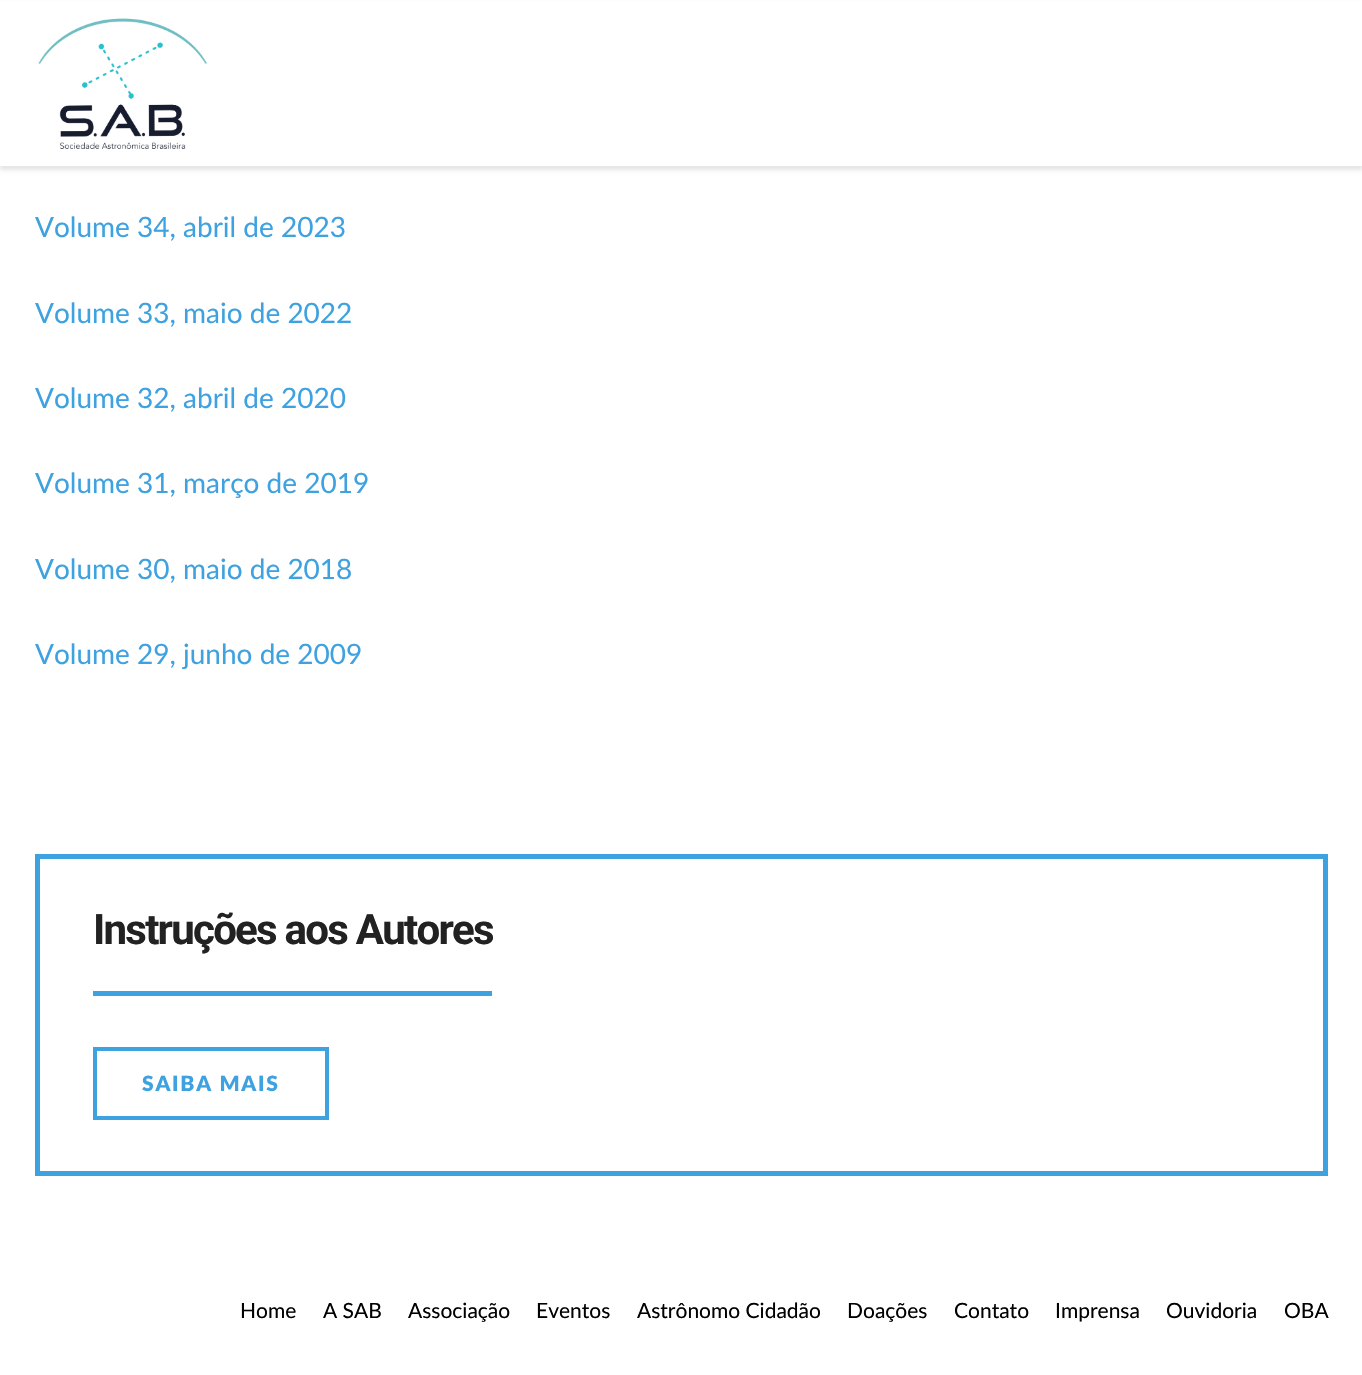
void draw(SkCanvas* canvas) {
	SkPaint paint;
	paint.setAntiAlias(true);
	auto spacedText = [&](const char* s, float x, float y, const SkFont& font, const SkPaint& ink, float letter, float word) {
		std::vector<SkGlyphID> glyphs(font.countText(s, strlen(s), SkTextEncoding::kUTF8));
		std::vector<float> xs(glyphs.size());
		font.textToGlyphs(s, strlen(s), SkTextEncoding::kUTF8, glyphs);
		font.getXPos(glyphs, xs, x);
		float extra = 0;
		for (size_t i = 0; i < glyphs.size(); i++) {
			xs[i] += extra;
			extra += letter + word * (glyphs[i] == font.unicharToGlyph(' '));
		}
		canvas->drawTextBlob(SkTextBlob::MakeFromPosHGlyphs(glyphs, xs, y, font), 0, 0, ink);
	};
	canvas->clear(0xffffffff);
	paint.setColor(0x1a000000);
	paint.setMaskFilter(SkMaskFilter::MakeBlur(kNormal_SkBlurStyle, 2));
	canvas->drawRect(SkRect::MakeXYWH(0, 4, 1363, 166), paint);
	paint.setMaskFilter(nullptr);
	paint.setColor(0xffffffff);
	canvas->drawRect(SkRect::MakeXYWH(0, 1, 1362, 165), paint);
	canvas->drawImageRect(SkImages::DeferredFromEncodedData(SkData::MakeFromFileName("img1.png")), SkRect::MakeXYWH(38, 18, 169, 131), SkSamplingOptions());
	SkFont f1(fontMgr->matchFamilyStyle("Lato", SkFontStyle::Normal()), 28);
	f1.setSubpixel(true);
	paint.setColor(0xff3ea2e0);
	canvas->drawString("Volume 34, abril de 2023", 35, 237, f1, paint);
	canvas->drawString("Volume 33, maio de 2022", 35, 323, f1, paint);
	canvas->drawString("Volume 32, abril de 2020", 35, 408, f1, paint);
	canvas->drawString("Volume 31, março de 2019", 35, 493, f1, paint);
	canvas->drawString("Volume 30, maio de 2018", 35, 579, f1, paint);
	canvas->drawString("Volume 29, junho de 2009", 35, 664, f1, paint);
	paint.setStroke(true);
	paint.setStrokeWidth(5);
	canvas->drawRect(SkRect::MakeXYWH(37.5, 856.5, 1288, 317), paint);
	SkFont f2(fontMgr->matchFamilyStyle("Roboto", SkFontStyle::Bold()), 42);
	f2.setSubpixel(true);
	paint.setStroke(false);
	paint.setColor(0xff222222);
	spacedText("Instruções aos Autores", 93, 944, f2, paint, -1.75, 0);
	paint.setColor(0xff3ea2e0);
	canvas->drawRect(SkRect::MakeXYWH(93, 991, 399, 5), paint);
	paint.setStroke(true);
	paint.setStrokeWidth(4);
	canvas->drawRect(SkRect::MakeXYWH(95, 1049, 232, 69), paint);
	SkFont f3(fontMgr->matchFamilyStyle("Lato", SkFontStyle(800, SkFontStyle::kNormal_Width, SkFontStyle::kUpright_Slant)), 21);
	f3.setSubpixel(true);
	paint.setStroke(false);
	spacedText("SAIBA MAIS", 142, 1091, f3, paint, 1.75, 0);
	SkFont f4(fontMgr->matchFamilyStyle("Lato", SkFontStyle::Normal()), 21);
	f4.setSubpixel(true);
	paint.setColor(0xff000000);
	canvas->drawString("Home", 240, 1318, f4, paint);
	canvas->drawString("A SAB", 323, 1318, f4, paint);
	canvas->drawString("Associação", 408, 1318, f4, paint);
	canvas->drawString("Eventos", 536, 1318, f4, paint);
	canvas->drawString("Astrônomo Cidadão", 637, 1318, f4, paint);
	canvas->drawString("Doações", 847, 1318, f4, paint);
	canvas->drawString("Contato", 954, 1318, f4, paint);
	canvas->drawString("Imprensa", 1055, 1318, f4, paint);
	canvas->drawString("Ouvidoria", 1166, 1318, f4, paint);
	canvas->drawString("OBA", 1284, 1318, f4, paint);
}
